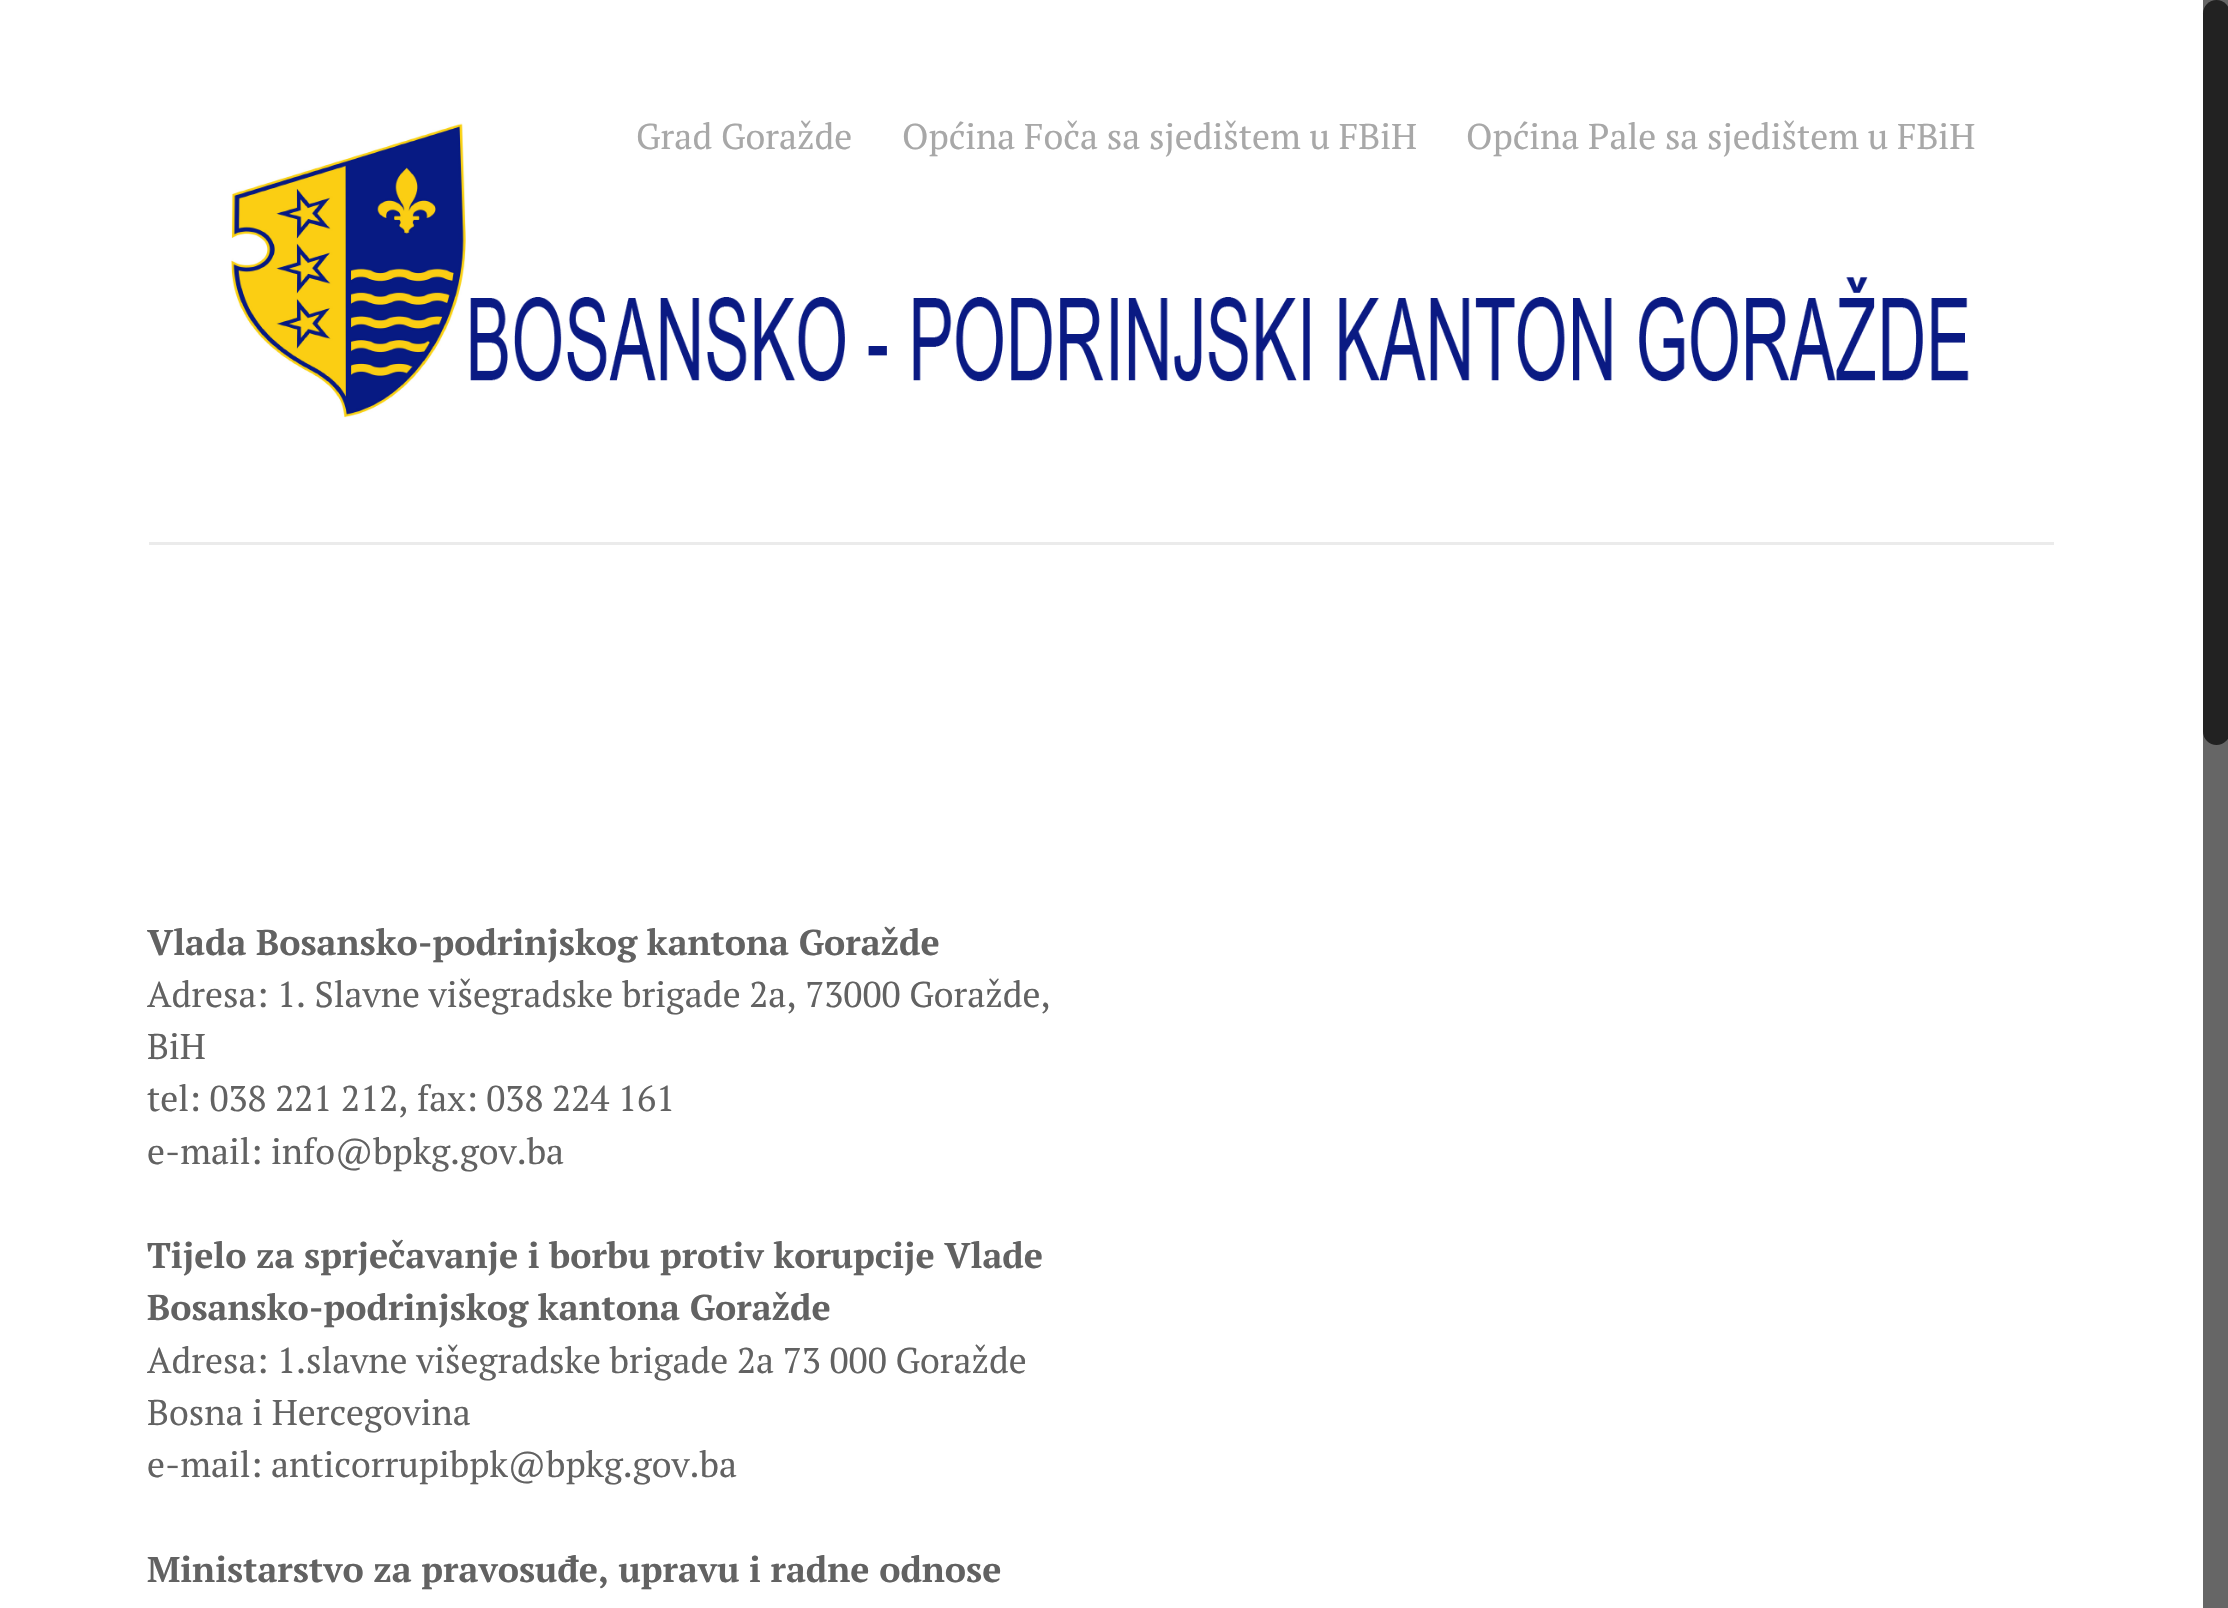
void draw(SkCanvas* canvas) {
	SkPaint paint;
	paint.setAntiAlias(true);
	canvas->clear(0xffffffff);
	canvas->drawImageRect(SkImages::DeferredFromEncodedData(SkData::MakeFromFileName("img1.png")), SkRect::MakeXYWH(231, 123, 1738, 295), SkSamplingOptions());
	SkFont f1(fontMgr->matchFamilyStyle("PT Serif", SkFontStyle::Normal()), 35.75);
	f1.setSubpixel(true);
	paint.setColor(0xffa8a8a8);
	canvas->drawString("Grad Goražde", 636, 149, f1, paint);
	canvas->drawString("Općina Foča sa sjedištem u FBiH", 902, 149, f1, paint);
	canvas->drawString("Općina Pale sa sjedištem u FBiH", 1466, 149, f1, paint);
	paint.setColor(0xffebebeb);
	canvas->drawRect(SkRect::MakeXYWH(149, 542, 1905, 3), paint);
	SkFont f2(fontMgr->matchFamilyStyle("PT Serif", SkFontStyle::Bold()), 35.75);
	f2.setSubpixel(true);
	paint.setColor(0xff626262);
	canvas->drawString("Vlada Bosansko-podrinjskog kantona Goražde", 147, 955, f2, paint);
	canvas->drawString("Adresa: 1. Slavne višegradske brigade 2a, 73000 Goražde,", 147, 1007, f1, paint);
	canvas->drawString("BiH", 147, 1059, f1, paint);
	canvas->drawString("tel: 038 221 212, fax: 038 224 161", 147, 1111, f1, paint);
	canvas->drawString("e-mail: info@bpkg.gov.ba", 147, 1164, f1, paint);
	canvas->drawString("Tijelo za sprječavanje i borbu protiv korupcije Vlade", 147, 1268, f2, paint);
	canvas->drawString("Bosansko-podrinjskog kantona Goražde", 147, 1320, f2, paint);
	canvas->drawString("Adresa: 1.slavne višegradske brigade 2a 73 000 Goražde", 147, 1373, f1, paint);
	canvas->drawString("Bosna i Hercegovina", 147, 1425, f1, paint);
	canvas->drawString("e-mail: anticorrupibpk@bpkg.gov.ba", 147, 1477, f1, paint);
	canvas->drawString("Ministarstvo za pravosuđe, upravu i radne odnose", 147, 1582, f2, paint);
	paint.setColor(0xff666666);
	canvas->drawRect(SkRect::MakeXYWH(2203, 0, 25, 1608), paint);
	paint.setColor(0xff222222);
	canvas->drawRoundRect(SkRect::MakeXYWH(2203, 0, 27, 745), 13.5, 13.5, paint);
}
